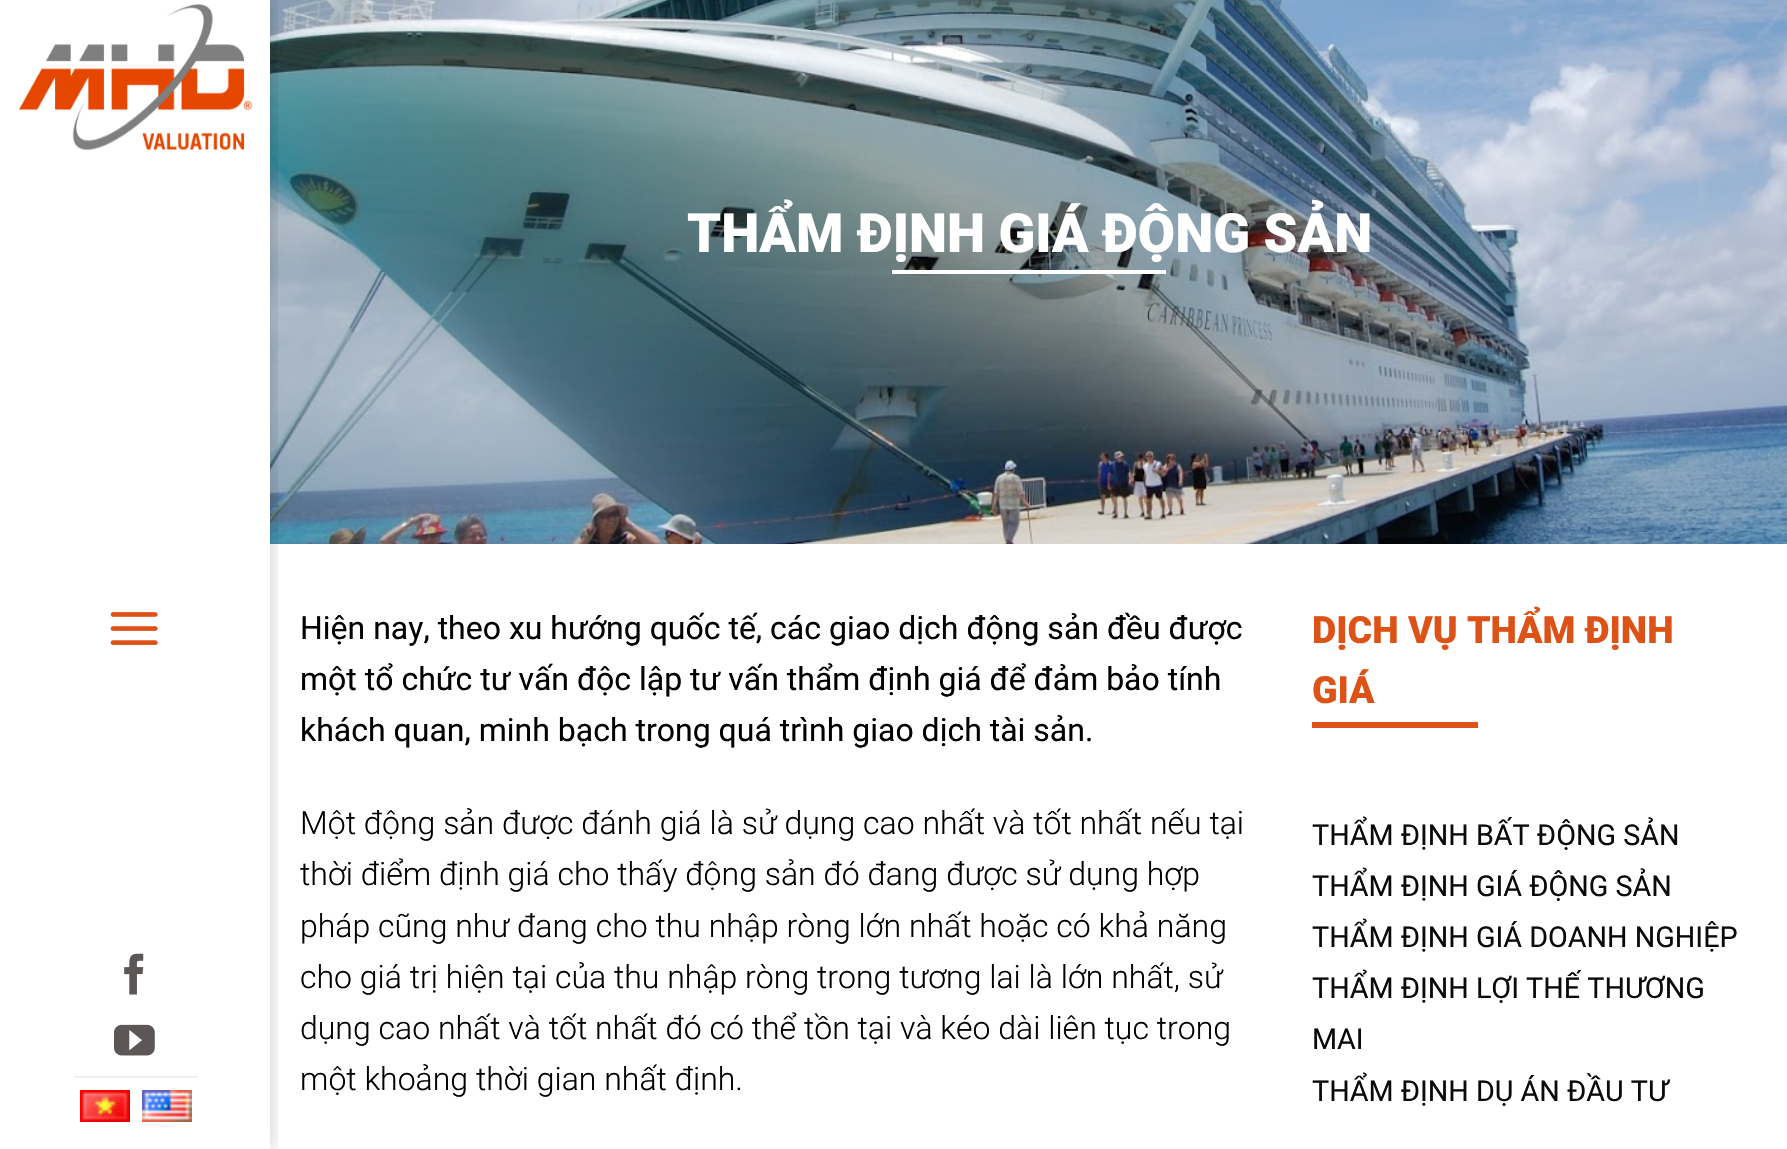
void draw(SkCanvas* canvas) {
	SkPaint paint;
	paint.setAntiAlias(true);
	canvas->clear(0xffffffff);
	canvas->drawImageRect(SkImages::DeferredFromEncodedData(SkData::MakeFromFileName("img7.png")), SkRect::MakeXYWH(270, 0, 1517, 544), SkSamplingOptions());
	canvas->save();
	canvas->clipRect(SkRect::MakeXYWH(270, 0, 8, 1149));
	paint.setColor(0x1a000000);
	paint.setMaskFilter(SkMaskFilter::MakeBlur(kNormal_SkBlurStyle, 10));
	canvas->drawRect(SkRect::MakeXYWH(0, 0, 270, 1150), paint);
	paint.setMaskFilter(nullptr);
	paint.setMaskFilter(SkMaskFilter::MakeBlur(kNormal_SkBlurStyle, 10));
	canvas->drawRect(SkRect::MakeXYWH(0, 0, 270, 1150), paint);
	paint.setMaskFilter(nullptr);
	canvas->restore();
	canvas->drawImageRect(SkImages::DeferredFromEncodedData(SkData::MakeFromFileName("img1.png")), SkRect::MakeXYWH(18, 4, 235, 147), SkSamplingOptions());
	canvas->drawImageRect(SkImages::DeferredFromEncodedData(SkData::MakeFromFileName("img2.png")), SkRect::MakeXYWH(110, 612, 48, 33), SkSamplingOptions());
	canvas->drawImageRect(SkImages::DeferredFromEncodedData(SkData::MakeFromFileName("img3.png")), SkRect::MakeXYWH(124, 953, 20, 42), SkSamplingOptions());
	canvas->drawImageRect(SkImages::DeferredFromEncodedData(SkData::MakeFromFileName("img4.png")), SkRect::MakeXYWH(114, 1024, 41, 32), SkSamplingOptions());
	paint.setColor(0xfff0f0f0);
	canvas->drawRect(SkRect::MakeXYWH(74, 1076, 124, 2), paint);
	canvas->drawImageRect(SkImages::DeferredFromEncodedData(SkData::MakeFromFileName("img5.png")), SkRect::MakeXYWH(80, 1090, 50, 32), SkSamplingOptions());
	canvas->drawImageRect(SkImages::DeferredFromEncodedData(SkData::MakeFromFileName("img6.png")), SkRect::MakeXYWH(142, 1090, 50, 32), SkSamplingOptions());
	SkFont f1(fontMgr->matchFamilyStyle("Roboto", SkFontStyle(900, SkFontStyle::kNormal_Width, SkFontStyle::kUpright_Slant)), 54.1);
	f1.setSubpixel(true);
	paint.setColor(0xffffffff);
	canvas->drawString("THẨM ĐỊNH GIÁ ĐỘNG SẢN", 687, 252, f1, paint);
	canvas->drawRect(SkRect::MakeXYWH(892, 270, 274, 4), paint);
	SkFont f2(fontMgr->matchFamilyStyle("Roboto", SkFontStyle::Normal()), 32);
	f2.setSubpixel(true);
	paint.setColor(0xff000000);
	canvas->drawString("Hiện nay, theo xu hướng quốc tế, các giao dịch động sản đều được", 300, 639, f2, paint);
	canvas->drawString("một tổ chức tư vấn độc lập tư vấn thẩm định giá để đảm bảo tính", 300, 690, f2, paint);
	canvas->drawString("khách quan, minh bạch trong quá trình giao dịch tài sản.", 300, 741, f2, paint);
	SkFont f3(fontMgr->matchFamilyStyle("Roboto", SkFontStyle(300, SkFontStyle::kNormal_Width, SkFontStyle::kUpright_Slant)), 32);
	f3.setSubpixel(true);
	canvas->drawString("Một động sản được đánh giá là sử dụng cao nhất và tốt nhất nếu tại", 300, 834, f3, paint);
	canvas->drawString("thời điểm định giá cho thấy động sản đó đang được sử dụng hợp", 300, 885, f3, paint);
	canvas->drawString("pháp cũng như đang cho thu nhập ròng lớn nhất hoặc có khả năng", 300, 937, f3, paint);
	canvas->drawString("cho giá trị hiện tại của thu nhập ròng trong tương lai là lớn nhất, sử", 300, 988, f3, paint);
	canvas->drawString("dụng cao nhất và tốt nhất đó có thể tồn tại và kéo dài liên tục trong", 300, 1039, f3, paint);
	canvas->drawString("một khoảng thời gian nhất định.", 300, 1090, f3, paint);
	SkFont f4(fontMgr->matchFamilyStyle("Roboto", SkFontStyle(900, SkFontStyle::kNormal_Width, SkFontStyle::kUpright_Slant)), 37.5);
	f4.setSubpixel(true);
	paint.setColor(0xffdd5216);
	canvas->drawString("DỊCH VỤ THẨM ĐỊNH", 1312, 643, f4, paint);
	canvas->drawString("GIÁ", 1312, 703, f4, paint);
	canvas->drawRect(SkRect::MakeXYWH(1312, 722, 166, 6), paint);
	SkFont f5(fontMgr->matchFamilyStyle("Roboto", SkFontStyle::Normal()), 28.75);
	f5.setSubpixel(true);
	paint.setColor(0xff0a0a0a);
	canvas->drawString("THẨM ĐỊNH BẤT ĐỘNG SẢN", 1312, 845, f5, paint);
	canvas->drawString("THẨM ĐỊNH GIÁ ĐỘNG SẢN", 1312, 896, f5, paint);
	canvas->drawString("THẨM ĐỊNH GIÁ DOANH NGHIỆP", 1312, 947, f5, paint);
	canvas->drawString("THẨM ĐỊNH LỢI THẾ THƯƠNG", 1312, 998, f5, paint);
	canvas->drawString("MAI", 1312, 1049, f5, paint);
	canvas->drawString("THẨM ĐỊNH DỤ ÁN ĐẦU TƯ", 1312, 1101, f5, paint);
}
